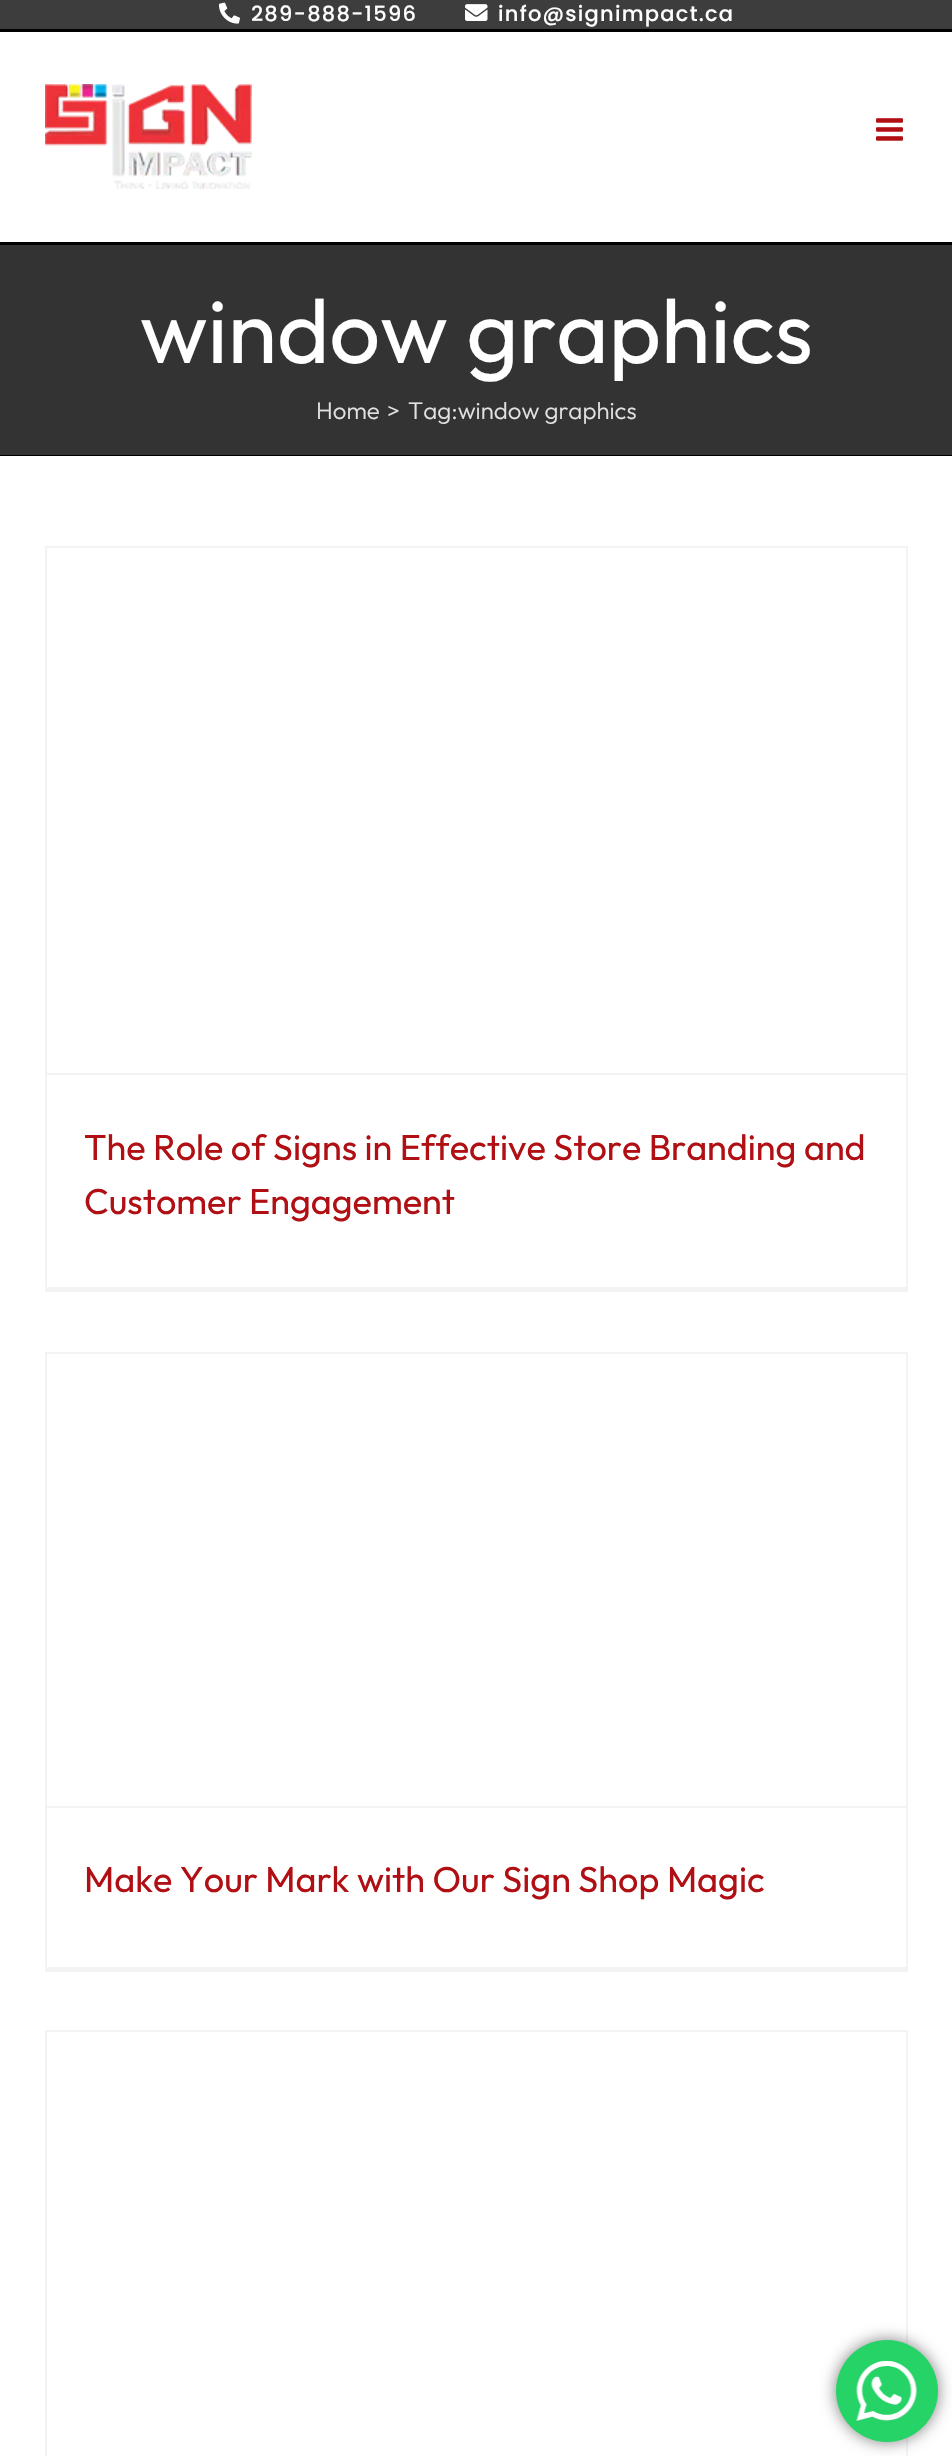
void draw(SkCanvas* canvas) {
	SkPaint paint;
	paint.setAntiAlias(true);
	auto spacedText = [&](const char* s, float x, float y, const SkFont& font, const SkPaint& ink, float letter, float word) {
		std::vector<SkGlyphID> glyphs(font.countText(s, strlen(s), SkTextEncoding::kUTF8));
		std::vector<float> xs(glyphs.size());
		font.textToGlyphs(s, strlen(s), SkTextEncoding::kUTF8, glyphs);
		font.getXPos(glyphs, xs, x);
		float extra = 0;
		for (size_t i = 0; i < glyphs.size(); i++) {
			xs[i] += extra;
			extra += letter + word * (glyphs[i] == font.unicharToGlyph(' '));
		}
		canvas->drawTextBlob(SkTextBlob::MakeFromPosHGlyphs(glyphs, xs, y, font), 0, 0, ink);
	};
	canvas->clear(0xffffffff);
	paint.setColor(0xff3d3d3d);
	canvas->drawRect(SkRect::MakeXYWH(0, 0, 952, 29), paint);
	paint.setColor(0xff000000);
	canvas->drawRect(SkRect::MakeXYWH(0, 29, 952, 3), paint);
	canvas->drawImageRect(SkImages::DeferredFromEncodedData(SkData::MakeFromFileName("img1.png")), SkRect::MakeXYWH(219, 2, 21, 22), SkSamplingOptions());
	SkFont f1(fontMgr->matchFamilyStyle("Poppins", SkFontStyle(500, SkFontStyle::kNormal_Width, SkFontStyle::kUpright_Slant)), 21);
	f1.setSubpixel(true);
	paint.setColor(0xffffffff);
	spacedText("289-888-1596", 251, 21, f1, paint, 1.25, 0);
	canvas->drawImageRect(SkImages::DeferredFromEncodedData(SkData::MakeFromFileName("img2.png")), SkRect::MakeXYWH(465, 4, 23, 17), SkSamplingOptions());
	spacedText("info@signimpact.ca", 498, 21, f1, paint, 1.25, 0);
	canvas->drawImageRect(SkImages::DeferredFromEncodedData(SkData::MakeFromFileName("img3.png")), SkRect::MakeXYWH(45, 84, 207, 105), SkSamplingOptions());
	canvas->drawImageRect(SkImages::DeferredFromEncodedData(SkData::MakeFromFileName("img4.png")), SkRect::MakeXYWH(876, 118, 27, 23), SkSamplingOptions());
	paint.setColor(0xff333333);
	canvas->drawRect(SkRect::MakeXYWH(0, 245, 952, 210), paint);
	paint.setColor(0xff000000);
	canvas->drawRect(SkRect::MakeXYWH(0, 242, 952, 3), paint);
	canvas->drawRect(SkRect::MakeXYWH(0, 455, 952, 1), paint);
	SkFont f2(fontMgr->matchFamilyStyle("Outfit", SkFontStyle::Normal()), 90);
	f2.setSubpixel(true);
	paint.setColor(0xffffffff);
	canvas->drawString("window graphics", 140, 363, f2, paint);
	SkFont f3(fontMgr->matchFamilyStyle("Outfit", SkFontStyle(300, SkFontStyle::kNormal_Width, SkFontStyle::kUpright_Slant)), 24);
	f3.setSubpixel(true);
	paint.setColor(0xffe2e2e2);
	canvas->drawString("Home", 316, 419, f3, paint);
	canvas->drawString(">", 387, 419, f3, paint);
	canvas->drawString("Tag:window graphics", 408, 419, f3, paint);
	paint.setColor(0xfff2f3f5);
	canvas->drawRect(SkRect::MakeXYWH(45, 546, 863, 2), paint);
	canvas->drawRect(SkRect::MakeXYWH(906, 546, 2, 746), paint);
	canvas->drawRect(SkRect::MakeXYWH(45, 1287, 863, 5), paint);
	canvas->drawRect(SkRect::MakeXYWH(45, 546, 2, 746), paint);
	canvas->drawRect(SkRect::MakeXYWH(47, 1073, 859, 2), paint);
	SkFont f4(fontMgr->matchFamilyStyle("Outfit", SkFontStyle::Normal()), 36);
	f4.setSubpixel(true);
	paint.setColor(0xffb00f14);
	canvas->drawString("The Role of Signs in Effective Store Branding and", 84, 1160, f4, paint);
	canvas->drawString("Customer Engagement", 84, 1214, f4, paint);
	paint.setColor(0xfff2f3f5);
	canvas->drawRect(SkRect::MakeXYWH(45, 1352, 863, 2), paint);
	canvas->drawRect(SkRect::MakeXYWH(906, 1352, 2, 619), paint);
	canvas->drawRect(SkRect::MakeXYWH(45, 1967, 863, 5), paint);
	canvas->drawRect(SkRect::MakeXYWH(45, 1352, 2, 619), paint);
	canvas->drawRect(SkRect::MakeXYWH(47, 1806, 859, 2), paint);
	paint.setColor(0xffb00f14);
	canvas->drawString("Make Your Mark with Our Sign Shop Magic", 84, 1892, f4, paint);
	paint.setColor(0xfff2f3f5);
	canvas->drawRect(SkRect::MakeXYWH(45, 2030, 863, 2), paint);
	canvas->drawRect(SkRect::MakeXYWH(906, 2030, 2, 426), paint);
	canvas->drawRect(SkRect::MakeXYWH(45, 2030, 2, 426), paint);
	paint.setColor(0x80000000);
	paint.setMaskFilter(SkMaskFilter::MakeBlur(kNormal_SkBlurStyle, 8));
	canvas->drawRoundRect(SkRect::MakeXYWH(836, 2340, 102, 102), 51, 51, paint);
	paint.setMaskFilter(nullptr);
	paint.setColor(0xff25d366);
	canvas->drawCircle(887, 2391, 51, paint);
	canvas->drawImageRect(SkImages::DeferredFromEncodedData(SkData::MakeFromFileName("img5.png")), SkRect::MakeXYWH(856, 2361, 61, 60), SkSamplingOptions());
}
